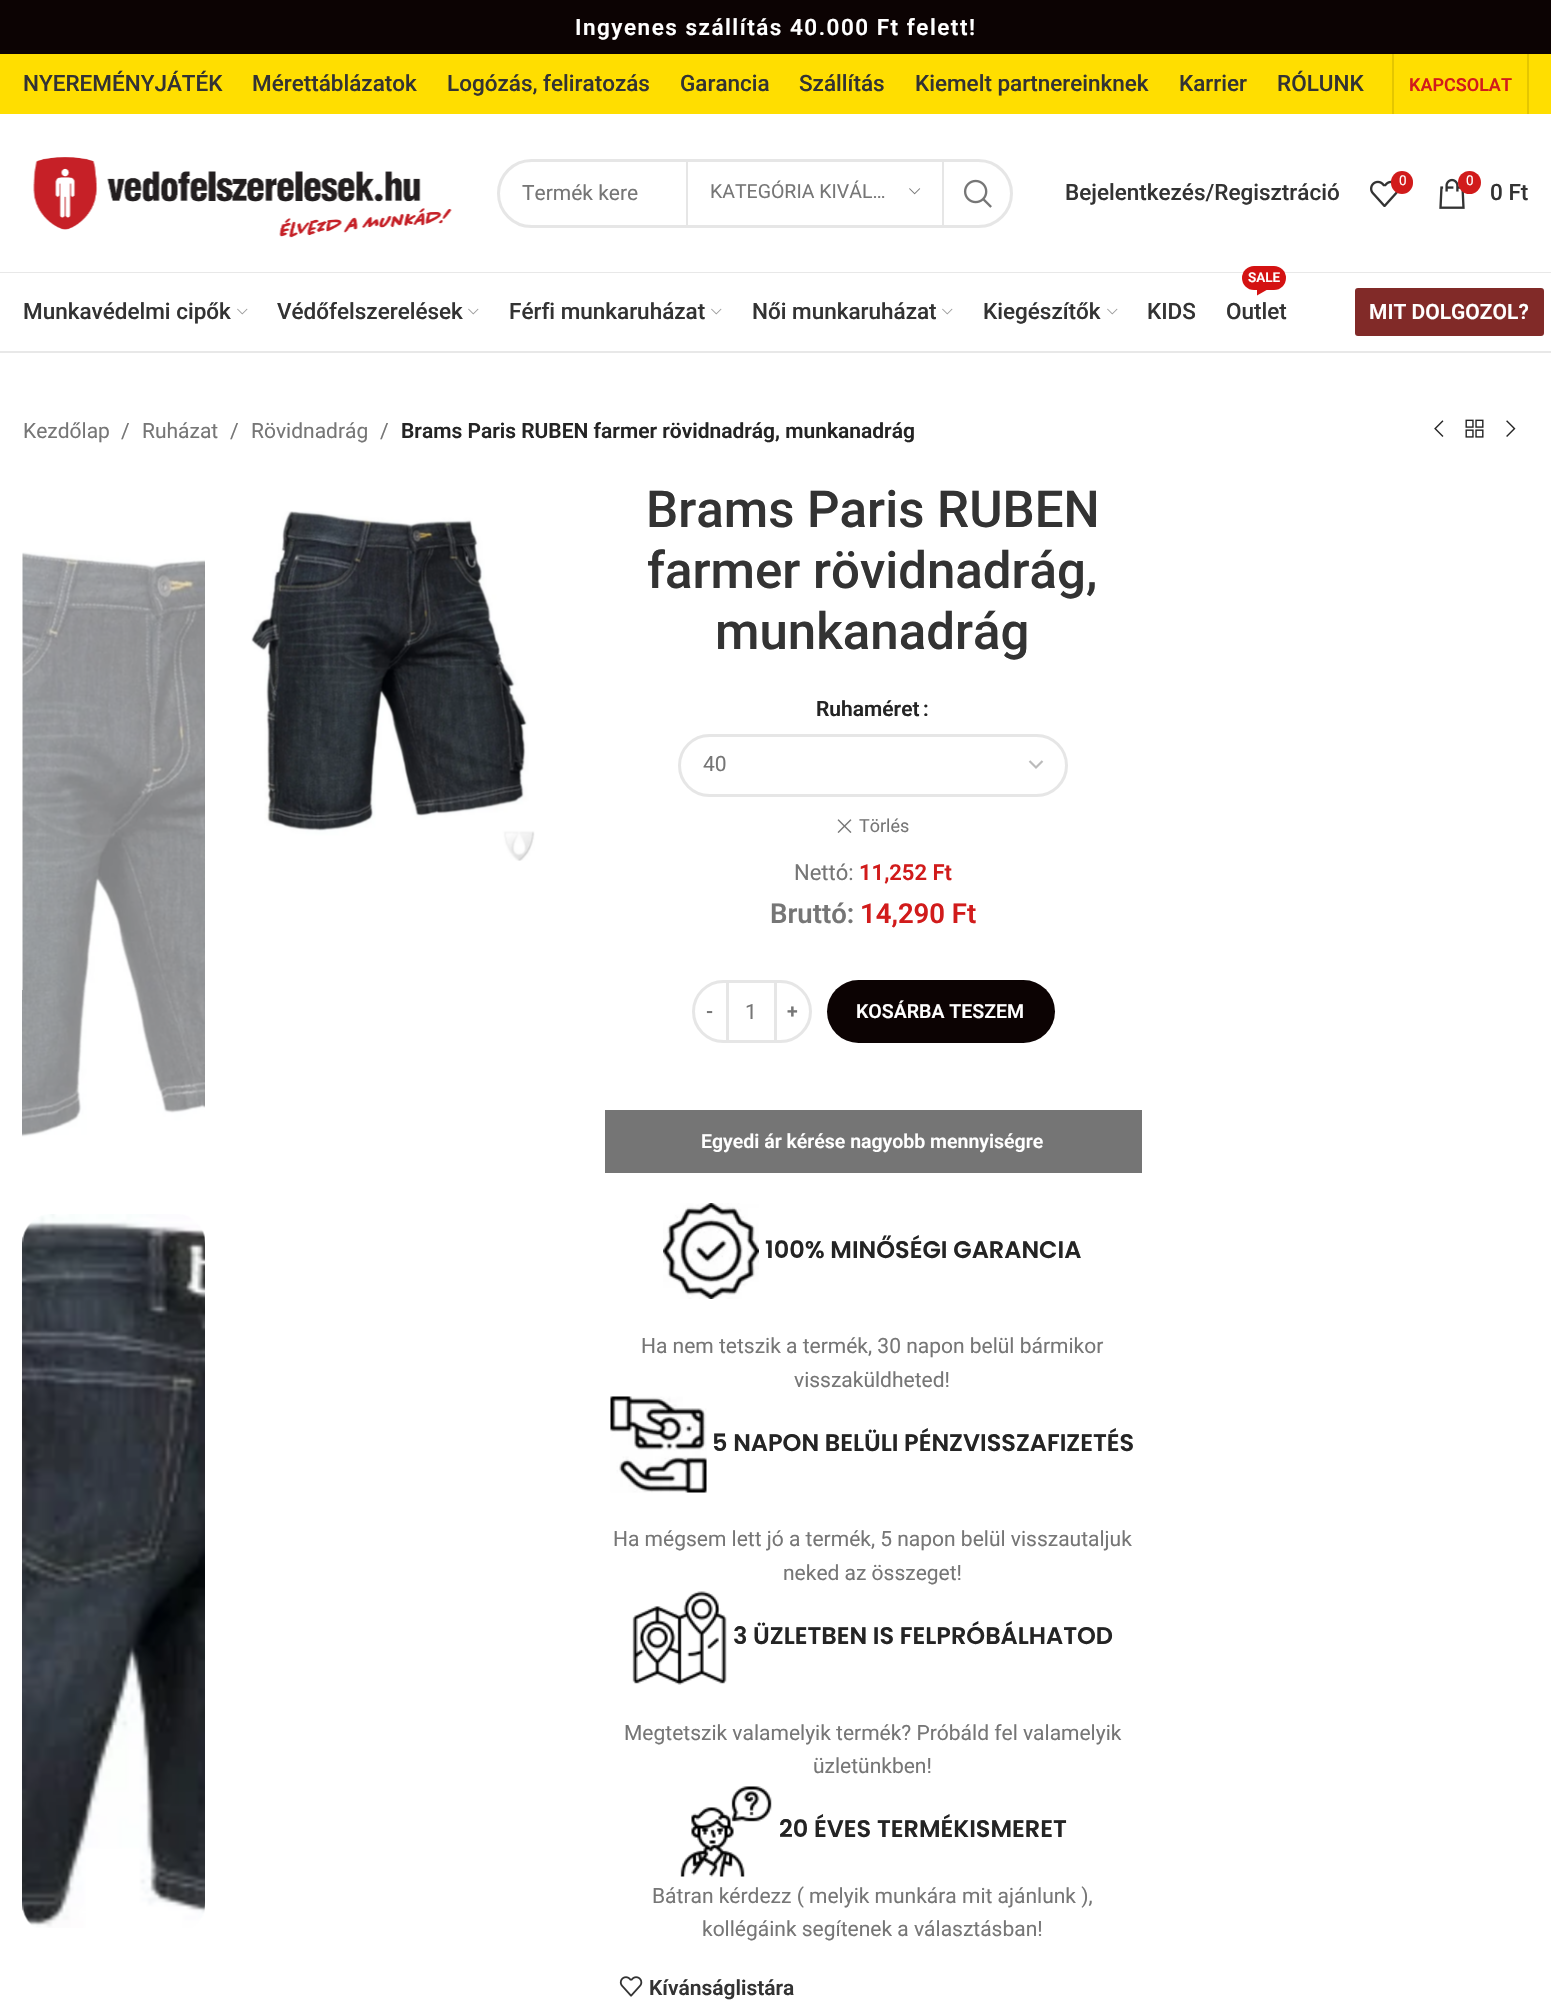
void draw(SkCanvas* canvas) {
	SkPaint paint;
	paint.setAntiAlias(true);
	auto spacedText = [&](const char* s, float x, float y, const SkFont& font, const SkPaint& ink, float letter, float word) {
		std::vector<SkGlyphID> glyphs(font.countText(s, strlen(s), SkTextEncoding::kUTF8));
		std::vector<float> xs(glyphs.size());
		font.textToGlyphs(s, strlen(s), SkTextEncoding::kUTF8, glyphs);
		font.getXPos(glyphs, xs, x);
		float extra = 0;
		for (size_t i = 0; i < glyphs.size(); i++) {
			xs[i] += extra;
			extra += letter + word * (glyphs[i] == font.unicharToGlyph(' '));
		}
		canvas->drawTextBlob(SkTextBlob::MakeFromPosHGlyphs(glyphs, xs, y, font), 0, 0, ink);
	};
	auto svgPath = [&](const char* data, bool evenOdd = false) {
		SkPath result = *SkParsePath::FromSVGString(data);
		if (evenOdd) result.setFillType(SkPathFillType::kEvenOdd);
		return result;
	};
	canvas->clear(0xffffffff);
	paint.setColor(0xff0c0303);
	canvas->drawRect(SkRect::MakeXYWH(0, 0, 1551, 54), paint);
	SkFont f1(fontMgr->matchFamilyStyle("Roboto", SkFontStyle(600, SkFontStyle::kNormal_Width, SkFontStyle::kUpright_Slant)), 22.5);
	f1.setSubpixel(true);
	paint.setColor(0xffffffff);
	spacedText("Ingyenes szállítás 40.000 Ft felett!", 575, 35, f1, paint, 1.5, 0);
	paint.setColor(0xffffde00);
	canvas->drawRect(SkRect::MakeXYWH(0, 54, 1551, 60), paint);
	SkFont f2(fontMgr->matchFamilyStyle("Roboto", SkFontStyle(500, SkFontStyle::kNormal_Width, SkFontStyle::kUpright_Slant)), 22.5);
	f2.setSubpixel(true);
	paint.setColor(0xff333333);
	canvas->drawString("NYEREMÉNYJÁTÉK", 23, 91, f2, paint);
	canvas->drawString("Mérettáblázatok", 252, 91, f2, paint);
	canvas->drawString("Logózás, feliratozás", 447, 91, f2, paint);
	canvas->drawString("Garancia", 680, 91, f2, paint);
	canvas->drawString("Szállítás", 799, 91, f2, paint);
	canvas->drawString("Kiemelt partnereinknek", 915, 91, f2, paint);
	canvas->drawString("Karrier", 1179, 91, f2, paint);
	canvas->drawString("RÓLUNK", 1277, 91, f2, paint);
	paint.setColor(0xffe4c600);
	canvas->drawRect(SkRect::MakeXYWH(1392, 54, 2, 60), paint);
	SkFont f3(fontMgr->matchFamilyStyle("Roboto", SkFontStyle(600, SkFontStyle::kNormal_Width, SkFontStyle::kUpright_Slant)), 18);
	f3.setSubpixel(true);
	paint.setColor(0xffd11b1b);
	canvas->drawString("KAPCSOLAT", 1409, 91, f3, paint);
	paint.setColor(0xffe4c600);
	canvas->drawRect(SkRect::MakeXYWH(1527, 54, 2, 60), paint);
	paint.setColor(0xffe8e8e8);
	canvas->drawRect(SkRect::MakeXYWH(0, 272, 1551, 1), paint);
	canvas->drawImageRect(SkImages::DeferredFromEncodedData(SkData::MakeFromFileName("img1.png")), SkRect::MakeXYWH(33, 157, 419, 81), SkSamplingOptions());
	paint.setStroke(true);
	paint.setStrokeWidth(3);
	paint.setColor(0xffe6e6e6);
	canvas->drawRoundRect(SkRect::MakeXYWH(498.5, 160.5, 513, 66), 33, 33, paint);
	SkFont f4(fontMgr->matchFamilyStyle("Roboto", SkFontStyle::Normal()), 21);
	f4.setSubpixel(true);
	paint.setStroke(false);
	paint.setColor(0xff767676);
	canvas->drawString("Termék kere", 522, 200, f4, paint);
	paint.setColor(0xffe6e6e6);
	canvas->drawRect(SkRect::MakeXYWH(942, 162, 2, 63), paint);
	canvas->drawRect(SkRect::MakeXYWH(686, 162, 2, 63), paint);
	SkFont f5(fontMgr->matchFamilyStyle("Roboto", SkFontStyle::Normal()), 19.5);
	f5.setSubpixel(true);
	paint.setColor(0xff767676);
	canvas->drawString("KATEGÓRIA KIVÁL…", 710, 198, f5, paint);
	canvas->drawImageRect(SkImages::DeferredFromEncodedData(SkData::MakeFromFileName("img2.png")), SkRect::MakeXYWH(909, 188, 12, 7), SkSamplingOptions());
	canvas->drawImageRect(SkImages::DeferredFromEncodedData(SkData::MakeFromFileName("img3.png")), SkRect::MakeXYWH(963, 179, 29, 29), SkSamplingOptions());
	paint.setColor(0xff333333);
	canvas->drawString("Bejelentkezés/Regisztráció", 1065, 200, f2, paint);
	canvas->drawImageRect(SkImages::DeferredFromEncodedData(SkData::MakeFromFileName("img4.png")), SkRect::MakeXYWH(1370, 180, 28, 27), SkSamplingOptions());
	paint.setColor(0xffd11b1b);
	canvas->drawRoundRect(SkRect::MakeXYWH(1391, 171, 22, 23), 11, 11, paint);
	SkFont f6(fontMgr->matchFamilyStyle("Roboto", SkFontStyle::Normal()), 13.5);
	f6.setSubpixel(true);
	paint.setColor(0xffffffff);
	canvas->drawString("0", 1399, 185, f6, paint);
	canvas->drawImageRect(SkImages::DeferredFromEncodedData(SkData::MakeFromFileName("img5.png")), SkRect::MakeXYWH(1439, 178, 26, 31), SkSamplingOptions());
	paint.setColor(0xffd11b1b);
	canvas->drawCircle(1469.5, 182.5, 11.5, paint);
	paint.setColor(0xffffffff);
	canvas->drawString("0", 1466, 185, f6, paint);
	paint.setColor(0xff333333);
	canvas->drawString("0 Ft", 1490, 200, f2, paint);
	paint.setColor(0xffe8e8e8);
	canvas->drawRect(SkRect::MakeXYWH(0, 351, 1551, 2), paint);
	paint.setColor(0xff333333);
	canvas->drawString("Munkavédelmi cipők", 23, 319, f2, paint);
	canvas->drawImageRect(SkImages::DeferredFromEncodedData(SkData::MakeFromFileName("img6.png")), SkRect::MakeXYWH(237, 308, 11, 7), SkSamplingOptions());
	canvas->drawString("Védőfelszerelések", 277, 319, f2, paint);
	canvas->drawImageRect(SkImages::DeferredFromEncodedData(SkData::MakeFromFileName("img6.png")), SkRect::MakeXYWH(468, 308, 11, 7), SkSamplingOptions());
	canvas->drawString("Férfi munkaruházat", 509, 319, f2, paint);
	canvas->drawImageRect(SkImages::DeferredFromEncodedData(SkData::MakeFromFileName("img6.png")), SkRect::MakeXYWH(711, 308, 11, 7), SkSamplingOptions());
	canvas->drawString("Női munkaruházat", 752, 319, f2, paint);
	canvas->drawImageRect(SkImages::DeferredFromEncodedData(SkData::MakeFromFileName("img6.png")), SkRect::MakeXYWH(942, 308, 11, 7), SkSamplingOptions());
	canvas->drawString("Kiegészítők", 983, 319, f2, paint);
	canvas->drawImageRect(SkImages::DeferredFromEncodedData(SkData::MakeFromFileName("img6.png")), SkRect::MakeXYWH(1107, 308, 11, 7), SkSamplingOptions());
	canvas->drawString("KIDS", 1147, 319, f2, paint);
	paint.setColor(0xffd41212);
	canvas->drawRoundRect(SkRect::MakeXYWH(1242, 266, 44, 24), 12, 12, paint);
	SkFont f7(fontMgr->matchFamilyStyle("Roboto", SkFontStyle(600, SkFontStyle::kNormal_Width, SkFontStyle::kUpright_Slant)), 13.5);
	f7.setSubpixel(true);
	paint.setColor(0xffffffff);
	canvas->drawString("SALE", 1248, 282, f7, paint);
	paint.setColor(0xffd41212);
	canvas->drawPath(svgPath("M1257 289.5H1267.5L1257 295.5Z"), paint);
	paint.setColor(0xff333333);
	canvas->drawString("Outlet", 1226, 319, f2, paint);
	paint.setColor(0xff812a28);
	canvas->drawRoundRect(SkRect::MakeXYWH(1355, 288, 189, 48), 3, 3, paint);
	SkFont f8(fontMgr->matchFamilyStyle("Roboto", SkFontStyle(600, SkFontStyle::kNormal_Width, SkFontStyle::kUpright_Slant)), 21);
	f8.setSubpixel(true);
	paint.setColor(0xffffffff);
	canvas->drawString("MIT DOLGOZOL?", 1369, 319, f8, paint);
	paint.setColor(0xff767676);
	canvas->drawString("Kezdőlap", 23, 438, f4, paint);
	canvas->drawString("/", 121, 438, f4, paint);
	canvas->drawString("Ruházat", 142, 438, f4, paint);
	canvas->drawString("/", 230, 438, f4, paint);
	canvas->drawString("Rövidnadrág", 251, 438, f4, paint);
	canvas->drawString("/", 380, 438, f4, paint);
	paint.setColor(0xff242424);
	canvas->drawString("Brams Paris RUBEN farmer rövidnadrág, munkanadrág", 401, 438, f8, paint);
	canvas->drawImageRect(SkImages::DeferredFromEncodedData(SkData::MakeFromFileName("img7.png")), SkRect::MakeXYWH(1434, 420, 10, 17), SkSamplingOptions());
	canvas->drawImageRect(SkImages::DeferredFromEncodedData(SkData::MakeFromFileName("img8.png")), SkRect::MakeXYWH(1465, 419, 19, 19), SkSamplingOptions());
	canvas->drawImageRect(SkImages::DeferredFromEncodedData(SkData::MakeFromFileName("img9.png")), SkRect::MakeXYWH(1506, 420, 10, 17), SkSamplingOptions());
	canvas->drawImageRect(SkImages::DeferredFromEncodedData(SkData::MakeFromFileName("img10.png")), SkRect::MakeXYWH(22, 552, 183, 585), SkSamplingOptions());
	canvas->drawImageRect(SkImages::DeferredFromEncodedData(SkData::MakeFromFileName("img11.png")), SkRect::MakeXYWH(22, 1214, 183, 714), SkSamplingOptions());
	canvas->drawImageRect(SkImages::DeferredFromEncodedData(SkData::MakeFromFileName("img12.png")), SkRect::MakeXYWH(251, 511, 284, 350), SkSamplingOptions());
	SkFont f9(fontMgr->matchFamilyStyle("Roboto", SkFontStyle(500, SkFontStyle::kNormal_Width, SkFontStyle::kUpright_Slant)), 51);
	f9.setSubpixel(true);
	paint.setColor(0xff333333);
	canvas->drawString("Brams Paris RUBEN", 646, 527, f9, paint);
	canvas->drawString("farmer rövidnadrág,", 647, 588, f9, paint);
	canvas->drawString("munkanadrág", 715, 649, f9, paint);
	paint.setColor(0xff242424);
	canvas->drawString("Ruhaméret", 816, 716, f8, paint);
	canvas->drawString(":", 923, 716, f8, paint);
	paint.setStroke(true);
	paint.setStrokeWidth(2.2);
	paint.setColor(0xffbbbbbb);
	canvas->drawPath(svgPath("M1029.5 761L1036 767.5L1042.5 761"), paint);
	paint.setStrokeWidth(3);
	paint.setColor(0xffe6e6e6);
	canvas->drawRoundRect(SkRect::MakeXYWH(679.5, 735.5, 387, 60), 30, 30, paint);
	paint.setStroke(false);
	paint.setColor(0xff767676);
	canvas->drawString("40", 703, 771, f4, paint);
	canvas->drawImageRect(SkImages::DeferredFromEncodedData(SkData::MakeFromFileName("img13.png")), SkRect::MakeXYWH(837, 819, 15, 14), SkSamplingOptions());
	SkFont f10(fontMgr->matchFamilyStyle("Roboto", SkFontStyle::Normal()), 18);
	f10.setSubpixel(true);
	canvas->drawString("Törlés", 859, 832, f10, paint);
	SkFont f11(fontMgr->matchFamilyStyle("Roboto", SkFontStyle::Normal()), 22);
	f11.setSubpixel(true);
	canvas->drawString("Nettó:", 794, 880, f11, paint);
	SkFont f12(fontMgr->matchFamilyStyle("Roboto", SkFontStyle(600, SkFontStyle::kNormal_Width, SkFontStyle::kUpright_Slant)), 22);
	f12.setSubpixel(true);
	paint.setColor(0xffd11b1b);
	canvas->drawString("11,252 Ft", 859, 880, f12, paint);
	SkFont f13(fontMgr->matchFamilyStyle("Roboto", SkFontStyle(600, SkFontStyle::kNormal_Width, SkFontStyle::kUpright_Slant)), 27.5);
	f13.setSubpixel(true);
	paint.setColor(0xff767676);
	canvas->drawString("Bruttó:", 770, 923, f13, paint);
	paint.setColor(0xffd11b1b);
	canvas->drawString("14,290 Ft", 860, 923, f13, paint);
	paint.setStroke(true);
	paint.setColor(0xffe6e6e6);
	canvas->drawPath(svgPath("M723.5 981.5H727.5V1041.5H723.5C707 1041.5 693.5 1028 693.5 1011.5C693.5 995 707 981.5 723.5 981.5Z"), paint);
	SkFont f14(fontMgr->matchFamilyStyle("Roboto", SkFontStyle(600, SkFontStyle::kNormal_Width, SkFontStyle::kUpright_Slant)), 19.5);
	f14.setSubpixel(true);
	paint.setStroke(false);
	paint.setColor(0xff767676);
	canvas->drawString("-", 706, 1018, f14, paint);
	paint.setColor(0xffe6e6e6);
	canvas->drawRect(SkRect::MakeXYWH(729, 980, 45, 3), paint);
	canvas->drawRect(SkRect::MakeXYWH(729, 1040, 45, 3), paint);
	paint.setColor(0xff767676);
	canvas->drawString("1", 745, 1019, f4, paint);
	paint.setStroke(true);
	paint.setColor(0xffe6e6e6);
	canvas->drawPath(svgPath("M775.5 981.5H780.5C797 981.5 810.5 995 810.5 1011.5C810.5 1028 797 1041.5 780.5 1041.5H775.5Z"), paint);
	paint.setStroke(false);
	paint.setColor(0xff767676);
	canvas->drawString("+", 787, 1018, f14, paint);
	paint.setColor(0xff0c0303);
	canvas->drawRoundRect(SkRect::MakeXYWH(827, 980, 228, 63), 31.5, 31.5, paint);
	paint.setColor(0xffffffff);
	canvas->drawString("KOSÁRBA TESZEM", 856, 1018, f14, paint);
	paint.setColor(0xff757575);
	canvas->drawRect(SkRect::MakeXYWH(605, 1110, 537, 63), paint);
	paint.setColor(0xffffffff);
	canvas->drawString("Egyedi ár kérése nagyobb mennyiségre", 701, 1148, f14, paint);
	canvas->drawImageRect(SkImages::DeferredFromEncodedData(SkData::MakeFromFileName("img14.png")), SkRect::MakeXYWH(663, 1203, 96, 96), SkSamplingOptions());
	SkFont f15(fontMgr->matchFamilyStyle("Poppins", SkFontStyle(600, SkFontStyle::kNormal_Width, SkFontStyle::kUpright_Slant)), 24);
	f15.setSubpixel(true);
	paint.setColor(0xff242424);
	canvas->drawString("100% MINŐSÉGI GARANCIA", 765, 1258, f15, paint);
	paint.setColor(0xff767676);
	canvas->drawString("Ha nem tetszik a termék, 30 napon belül bármikor", 641, 1353, f4, paint);
	canvas->drawString("visszaküldheted!", 794, 1387, f4, paint);
	canvas->drawImageRect(SkImages::DeferredFromEncodedData(SkData::MakeFromFileName("img15.png")), SkRect::MakeXYWH(610, 1396, 97, 97), SkSamplingOptions());
	paint.setColor(0xff242424);
	canvas->drawString("5 NAPON BELÜLI PÉNZVISSZAFIZETÉS", 712, 1451, f15, paint);
	paint.setColor(0xff767676);
	canvas->drawString("Ha mégsem lett jó a termék, 5 napon belül visszautaljuk", 613, 1546, f4, paint);
	canvas->drawString("neked az összeget!", 783, 1580, f4, paint);
	canvas->drawImageRect(SkImages::DeferredFromEncodedData(SkData::MakeFromFileName("img16.png")), SkRect::MakeXYWH(632, 1591, 95, 94), SkSamplingOptions());
	paint.setColor(0xff242424);
	canvas->drawString("3 ÜZLETBEN IS FELPRÓBÁLHATOD", 733, 1644, f15, paint);
	paint.setColor(0xff767676);
	canvas->drawString("Megtetszik valamelyik termék? Próbáld fel valamelyik", 624, 1740, f4, paint);
	canvas->drawString("üzletünkben!", 813, 1773, f4, paint);
	canvas->drawImageRect(SkImages::DeferredFromEncodedData(SkData::MakeFromFileName("img17.png")), SkRect::MakeXYWH(680, 1786, 92, 91), SkSamplingOptions());
	paint.setColor(0xff242424);
	canvas->drawString("20 ÉVES TERMÉKISMERET", 779, 1837, f15, paint);
	paint.setColor(0xff767676);
	canvas->drawString("Bátran kérdezz ( melyik munkára mit ajánlunk ),", 652, 1903, f4, paint);
	canvas->drawString("kollégáink segítenek a választásban!", 702, 1936, f4, paint);
	canvas->drawImageRect(SkImages::DeferredFromEncodedData(SkData::MakeFromFileName("img18.png")), SkRect::MakeXYWH(619, 1976, 24, 21), SkSamplingOptions());
	paint.setColor(0xff333333);
	canvas->drawString("Kívánságlistára", 649, 1995, f8, paint);
}
